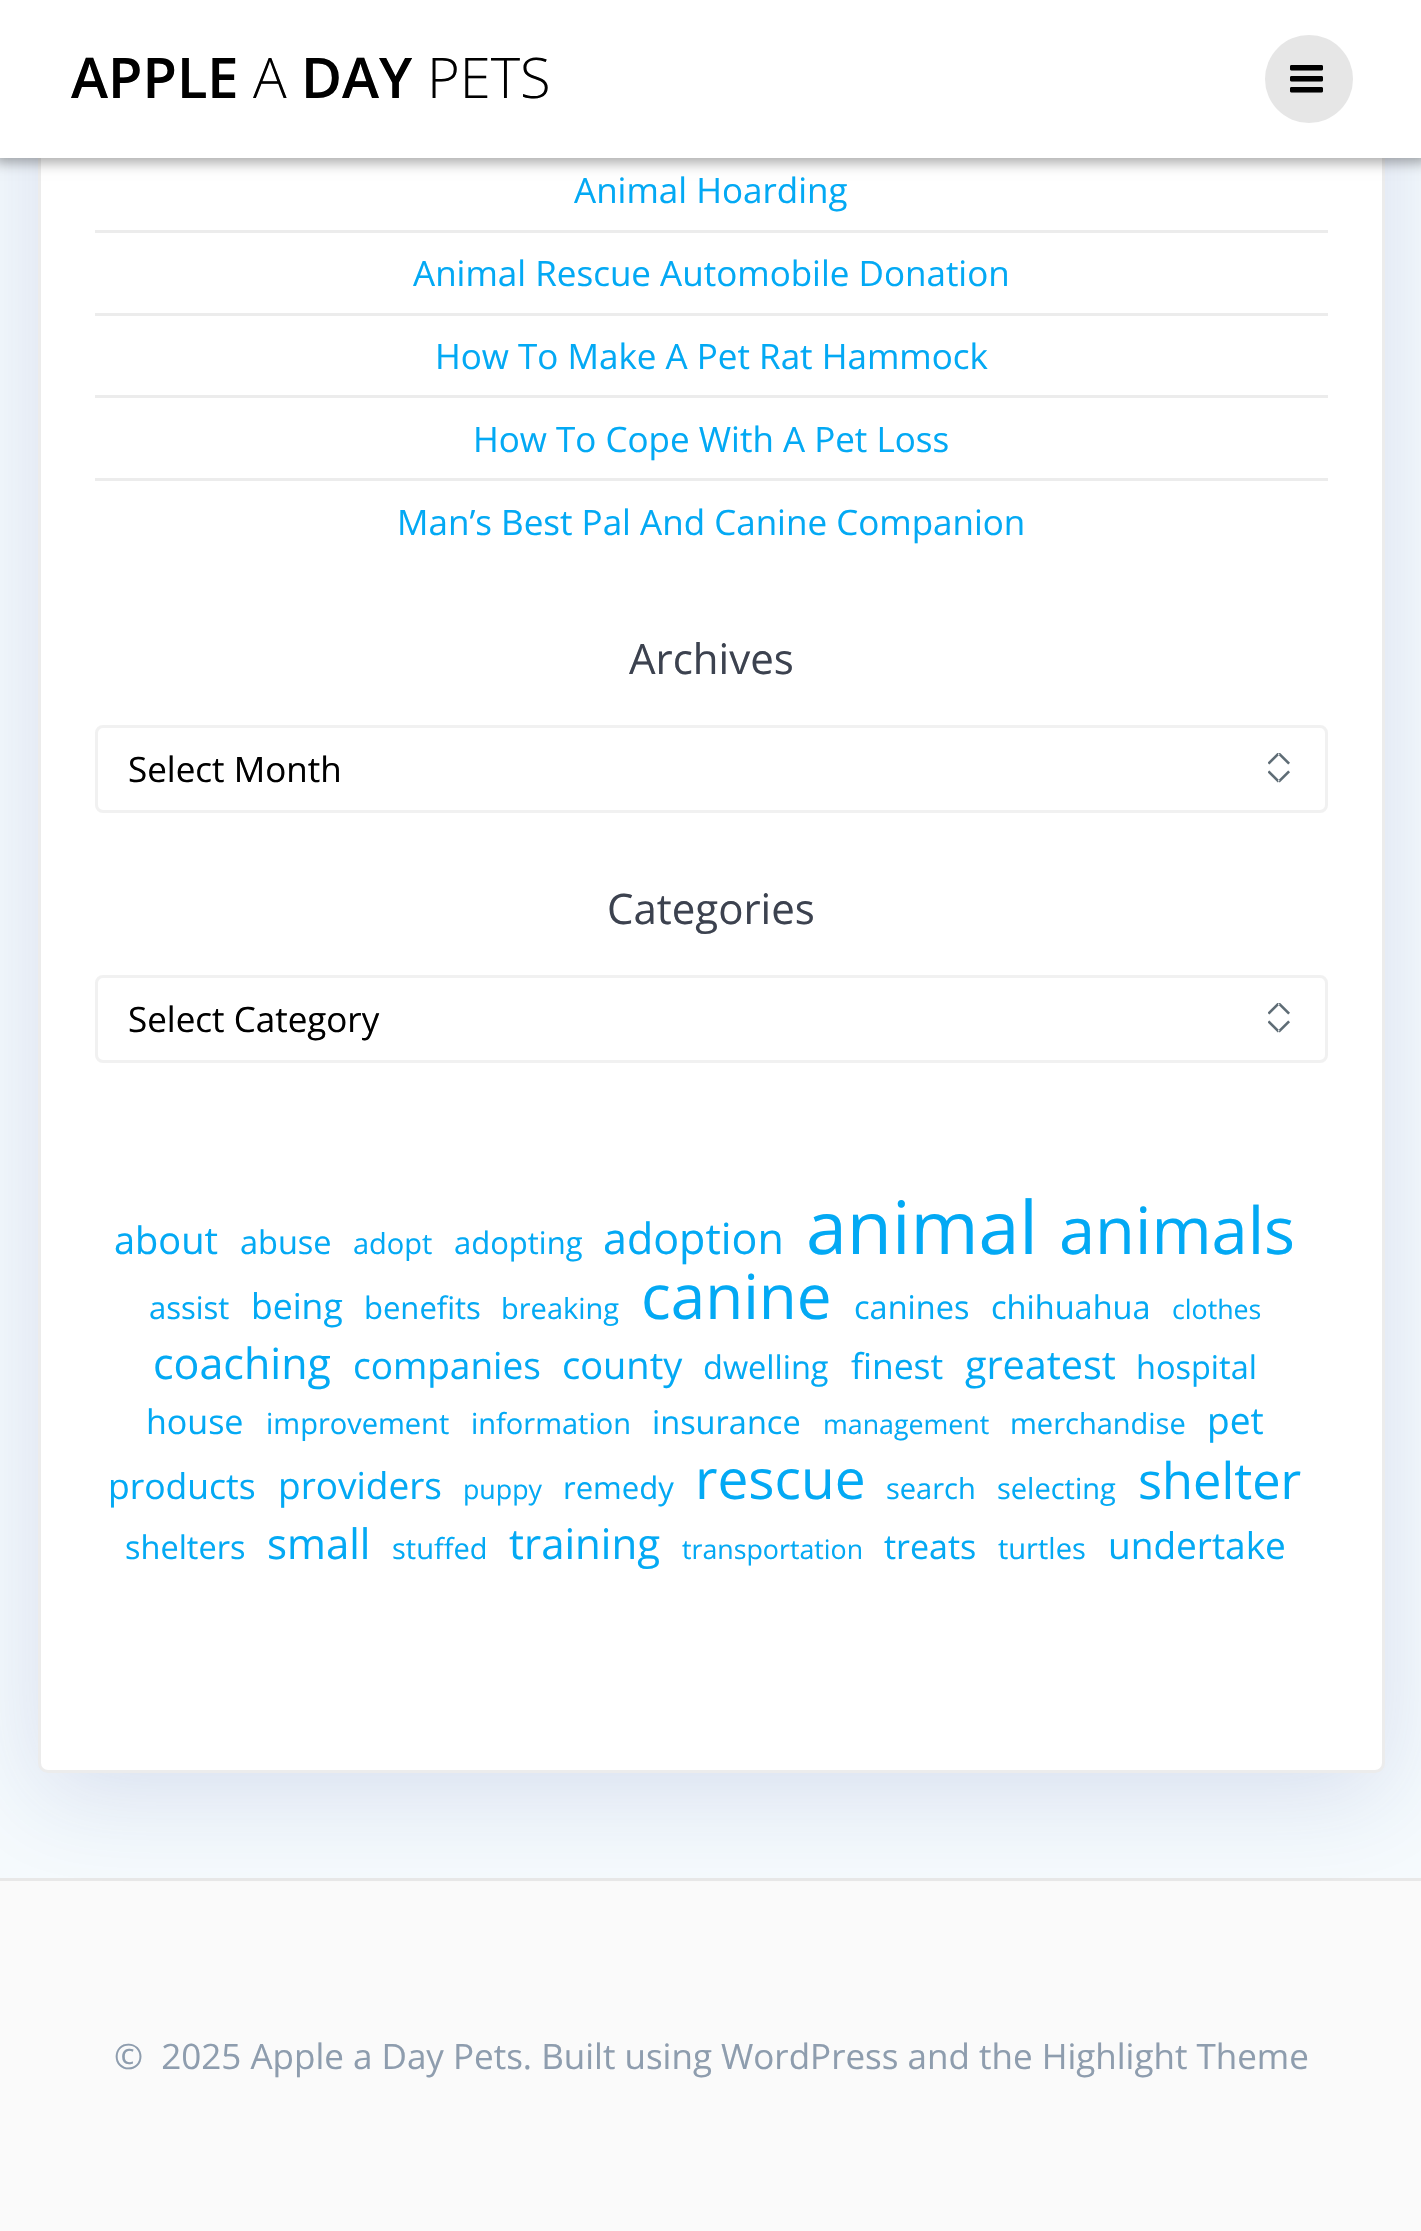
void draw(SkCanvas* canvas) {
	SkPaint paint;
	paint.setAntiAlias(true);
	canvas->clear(0xfffafafa);
	paint.setColor(0xfff5fafd);
	canvas->drawRect(SkRect::MakeXYWH(0, 158, 1421, 1720), paint);
	paint.setColor(0xffe8e8e8);
	canvas->drawRect(SkRect::MakeXYWH(0, 1878, 1421, 3), paint);
	paint.setColor(0x26234598);
	paint.setMaskFilter(SkMaskFilter::MakeBlur(kNormal_SkBlurStyle, 49));
	canvas->drawRoundRect(SkRect::MakeXYWH(38, -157, 1347, 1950), 10, 10, paint);
	paint.setMaskFilter(nullptr);
	paint.setColor(0xffffffff);
	canvas->drawRoundRect(SkRect::MakeXYWH(39.5, -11.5, 1344, 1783), 8.5, 8.5, paint);
	paint.setStroke(true);
	paint.setStrokeWidth(3);
	paint.setColor(0xffececec);
	canvas->drawRoundRect(SkRect::MakeXYWH(39.5, -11.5, 1344, 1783), 8.5, 8.5, paint);
	paint.setStroke(false);
	paint.setColor(0x54000000);
	paint.setMaskFilter(SkMaskFilter::MakeBlur(kNormal_SkBlurStyle, 6));
	canvas->drawRect(SkRect::MakeXYWH(-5, -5, 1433, 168), paint);
	paint.setMaskFilter(nullptr);
	paint.setColor(0xffffffff);
	canvas->drawRect(SkRect::MakeXYWH(0, 0, 1421, 158), paint);
	SkFont f1(fontMgr->matchFamilyStyle("Open Sans", SkFontStyle(600, SkFontStyle::kNormal_Width, SkFontStyle::kUpright_Slant)), 56);
	f1.setSubpixel(true);
	paint.setColor(0xff000000);
	canvas->drawString("APPLE", 71, 98, f1, paint);
	SkFont f2(fontMgr->matchFamilyStyle("Open Sans", SkFontStyle(300, SkFontStyle::kNormal_Width, SkFontStyle::kUpright_Slant)), 56);
	f2.setSubpixel(true);
	canvas->drawString("A", 253, 98, f2, paint);
	canvas->drawString("DAY", 301, 98, f1, paint);
	canvas->drawString("PETS", 427, 98, f2, paint);
	paint.setColor(0xffe6e6e6);
	canvas->drawCircle(1309, 79, 44, paint);
	canvas->drawImageRect(SkImages::DeferredFromEncodedData(SkData::MakeFromFileName("img1.png")), SkRect::MakeXYWH(1290, 65, 33, 28), SkSamplingOptions());
	SkFont f3(fontMgr->matchFamilyStyle("Open Sans", SkFontStyle::Normal()), 35);
	f3.setSubpixel(true);
	paint.setColor(0xff03a9f4);
	canvas->drawString("Animal Hoarding", 574, 203, f3, paint);
	paint.setColor(0xffececec);
	canvas->drawRect(SkRect::MakeXYWH(95, 230, 1233, 3), paint);
	paint.setColor(0xff03a9f4);
	canvas->drawString("Animal Rescue Automobile Donation", 413, 286, f3, paint);
	paint.setColor(0xffececec);
	canvas->drawRect(SkRect::MakeXYWH(95, 313, 1233, 3), paint);
	paint.setColor(0xff03a9f4);
	canvas->drawString("How To Make A Pet Rat Hammock", 435, 369, f3, paint);
	paint.setColor(0xffececec);
	canvas->drawRect(SkRect::MakeXYWH(95, 395, 1233, 3), paint);
	paint.setColor(0xff03a9f4);
	canvas->drawString("How To Cope With A Pet Loss", 473, 452, f3, paint);
	paint.setColor(0xffececec);
	canvas->drawRect(SkRect::MakeXYWH(95, 478, 1233, 3), paint);
	paint.setColor(0xff03a9f4);
	canvas->drawString("Man’s Best Pal And Canine Companion", 397, 535, f3, paint);
	SkFont f4(fontMgr->matchFamilyStyle("Open Sans", SkFontStyle::Normal()), 42);
	f4.setSubpixel(true);
	paint.setColor(0xff3c424f);
	canvas->drawString("Archives", 629, 674, f4, paint);
	canvas->drawImageRect(SkImages::DeferredFromEncodedData(SkData::MakeFromFileName("img2.png")), SkRect::MakeXYWH(1268, 753, 22, 30), SkSamplingOptions());
	paint.setStroke(true);
	paint.setColor(0xfff1f1f1);
	canvas->drawRoundRect(SkRect::MakeXYWH(96.5, 726.5, 1230, 85), 6.5, 6.5, paint);
	paint.setStroke(false);
	paint.setColor(0xff000000);
	canvas->drawString("Select Month", 128, 782, f3, paint);
	paint.setColor(0xff3c424f);
	canvas->drawString("Categories", 607, 924, f4, paint);
	canvas->drawImageRect(SkImages::DeferredFromEncodedData(SkData::MakeFromFileName("img2.png")), SkRect::MakeXYWH(1268, 1003, 22, 30), SkSamplingOptions());
	paint.setStroke(true);
	paint.setColor(0xfff1f1f1);
	canvas->drawRoundRect(SkRect::MakeXYWH(96.5, 976.5, 1230, 85), 6.5, 6.5, paint);
	paint.setStroke(false);
	paint.setColor(0xff000000);
	canvas->drawString("Select Category", 128, 1032, f3, paint);
	SkFont f5(fontMgr->matchFamilyStyle("Open Sans", SkFontStyle::Normal()), 38);
	f5.setSubpixel(true);
	paint.setColor(0xff03a9f4);
	canvas->drawString("about", 114, 1254, f5, paint);
	SkFont f6(fontMgr->matchFamilyStyle("Open Sans", SkFontStyle::Normal()), 32.5);
	f6.setSubpixel(true);
	canvas->drawString("abuse", 240, 1254, f6, paint);
	SkFont f7(fontMgr->matchFamilyStyle("Open Sans", SkFontStyle::Normal()), 29);
	f7.setSubpixel(true);
	canvas->drawString("adopt", 353, 1254, f7, paint);
	SkFont f8(fontMgr->matchFamilyStyle("Open Sans", SkFontStyle::Normal()), 31);
	f8.setSubpixel(true);
	canvas->drawString("adopting", 454, 1254, f8, paint);
	SkFont f9(fontMgr->matchFamilyStyle("Open Sans", SkFontStyle::Normal()), 43);
	f9.setSubpixel(true);
	canvas->drawString("adoption", 603, 1254, f9, paint);
	SkFont f10(fontMgr->matchFamilyStyle("Open Sans", SkFontStyle::Normal()), 73.5);
	f10.setSubpixel(true);
	canvas->drawString("animal", 806, 1254, f10, paint);
	SkFont f11(fontMgr->matchFamilyStyle("Open Sans", SkFontStyle::Normal()), 65);
	f11.setSubpixel(true);
	canvas->drawString("animals", 1059, 1254, f11, paint);
	canvas->drawString("assist", 149, 1319, f8, paint);
	SkFont f12(fontMgr->matchFamilyStyle("Open Sans", SkFontStyle::Normal()), 35.5);
	f12.setSubpixel(true);
	canvas->drawString("being", 251, 1319, f12, paint);
	canvas->drawString("benefits", 364, 1319, f8, paint);
	canvas->drawString("breaking", 501, 1319, f7, paint);
	SkFont f13(fontMgr->matchFamilyStyle("Open Sans", SkFontStyle::Normal()), 62);
	f13.setSubpixel(true);
	canvas->drawString("canine", 641, 1319, f13, paint);
	canvas->drawString("canines", 854, 1319, f6, paint);
	canvas->drawString("chihuahua", 991, 1319, f6, paint);
	SkFont f14(fontMgr->matchFamilyStyle("Open Sans", SkFontStyle::Normal()), 26.75);
	f14.setSubpixel(true);
	canvas->drawString("clothes", 1172, 1319, f14, paint);
	canvas->drawString("coaching", 153, 1379, f9, paint);
	SkFont f15(fontMgr->matchFamilyStyle("Open Sans", SkFontStyle::Normal()), 37);
	f15.setSubpixel(true);
	canvas->drawString("companies", 353, 1379, f15, paint);
	canvas->drawString("county", 562, 1379, f5, paint);
	canvas->drawString("dwelling", 703, 1379, f6, paint);
	canvas->drawString("finest", 851, 1379, f12, paint);
	SkFont f16(fontMgr->matchFamilyStyle("Open Sans", SkFontStyle::Normal()), 39.5);
	f16.setSubpixel(true);
	canvas->drawString("greatest", 965, 1379, f16, paint);
	canvas->drawString("hospital", 1136, 1379, f6, paint);
	SkFont f17(fontMgr->matchFamilyStyle("Open Sans", SkFontStyle::Normal()), 34);
	f17.setSubpixel(true);
	canvas->drawString("house", 146, 1434, f17, paint);
	canvas->drawString("improvement", 266, 1434, f7, paint);
	canvas->drawString("information", 471, 1434, f7, paint);
	canvas->drawString("insurance", 652, 1434, f6, paint);
	canvas->drawString("management", 823, 1434, f14, paint);
	canvas->drawString("merchandise", 1010, 1434, f7, paint);
	canvas->drawString("pet", 1207, 1434, f15, paint);
	canvas->drawString("products", 108, 1499, f12, paint);
	canvas->drawString("providers", 278, 1499, f15, paint);
	canvas->drawString("puppy", 463, 1499, f14, paint);
	canvas->drawString("remedy", 563, 1499, f8, paint);
	SkFont f18(fontMgr->matchFamilyStyle("Open Sans", SkFontStyle::Normal()), 55);
	f18.setSubpixel(true);
	canvas->drawString("rescue", 695, 1499, f18, paint);
	canvas->drawString("search", 886, 1499, f7, paint);
	canvas->drawString("selecting", 997, 1499, f7, paint);
	SkFont f19(fontMgr->matchFamilyStyle("Open Sans", SkFontStyle::Normal()), 50.5);
	f19.setSubpixel(true);
	canvas->drawString("shelter", 1138, 1499, f19, paint);
	canvas->drawString("shelters", 125, 1559, f6, paint);
	canvas->drawString("small", 267, 1559, f4, paint);
	canvas->drawString("stuffed", 392, 1559, f7, paint);
	canvas->drawString("training", 509, 1559, f4, paint);
	canvas->drawString("transportation", 682, 1559, f14, paint);
	canvas->drawString("treats", 884, 1559, f17, paint);
	canvas->drawString("turtles", 998, 1559, f7, paint);
	canvas->drawString("undertake", 1108, 1559, f15, paint);
	paint.setColor(0xff8e9dae);
	canvas->drawString("©  2025 Apple a Day Pets. Built using WordPress and the Highlight Theme", 114, 2069, f3, paint);
}
